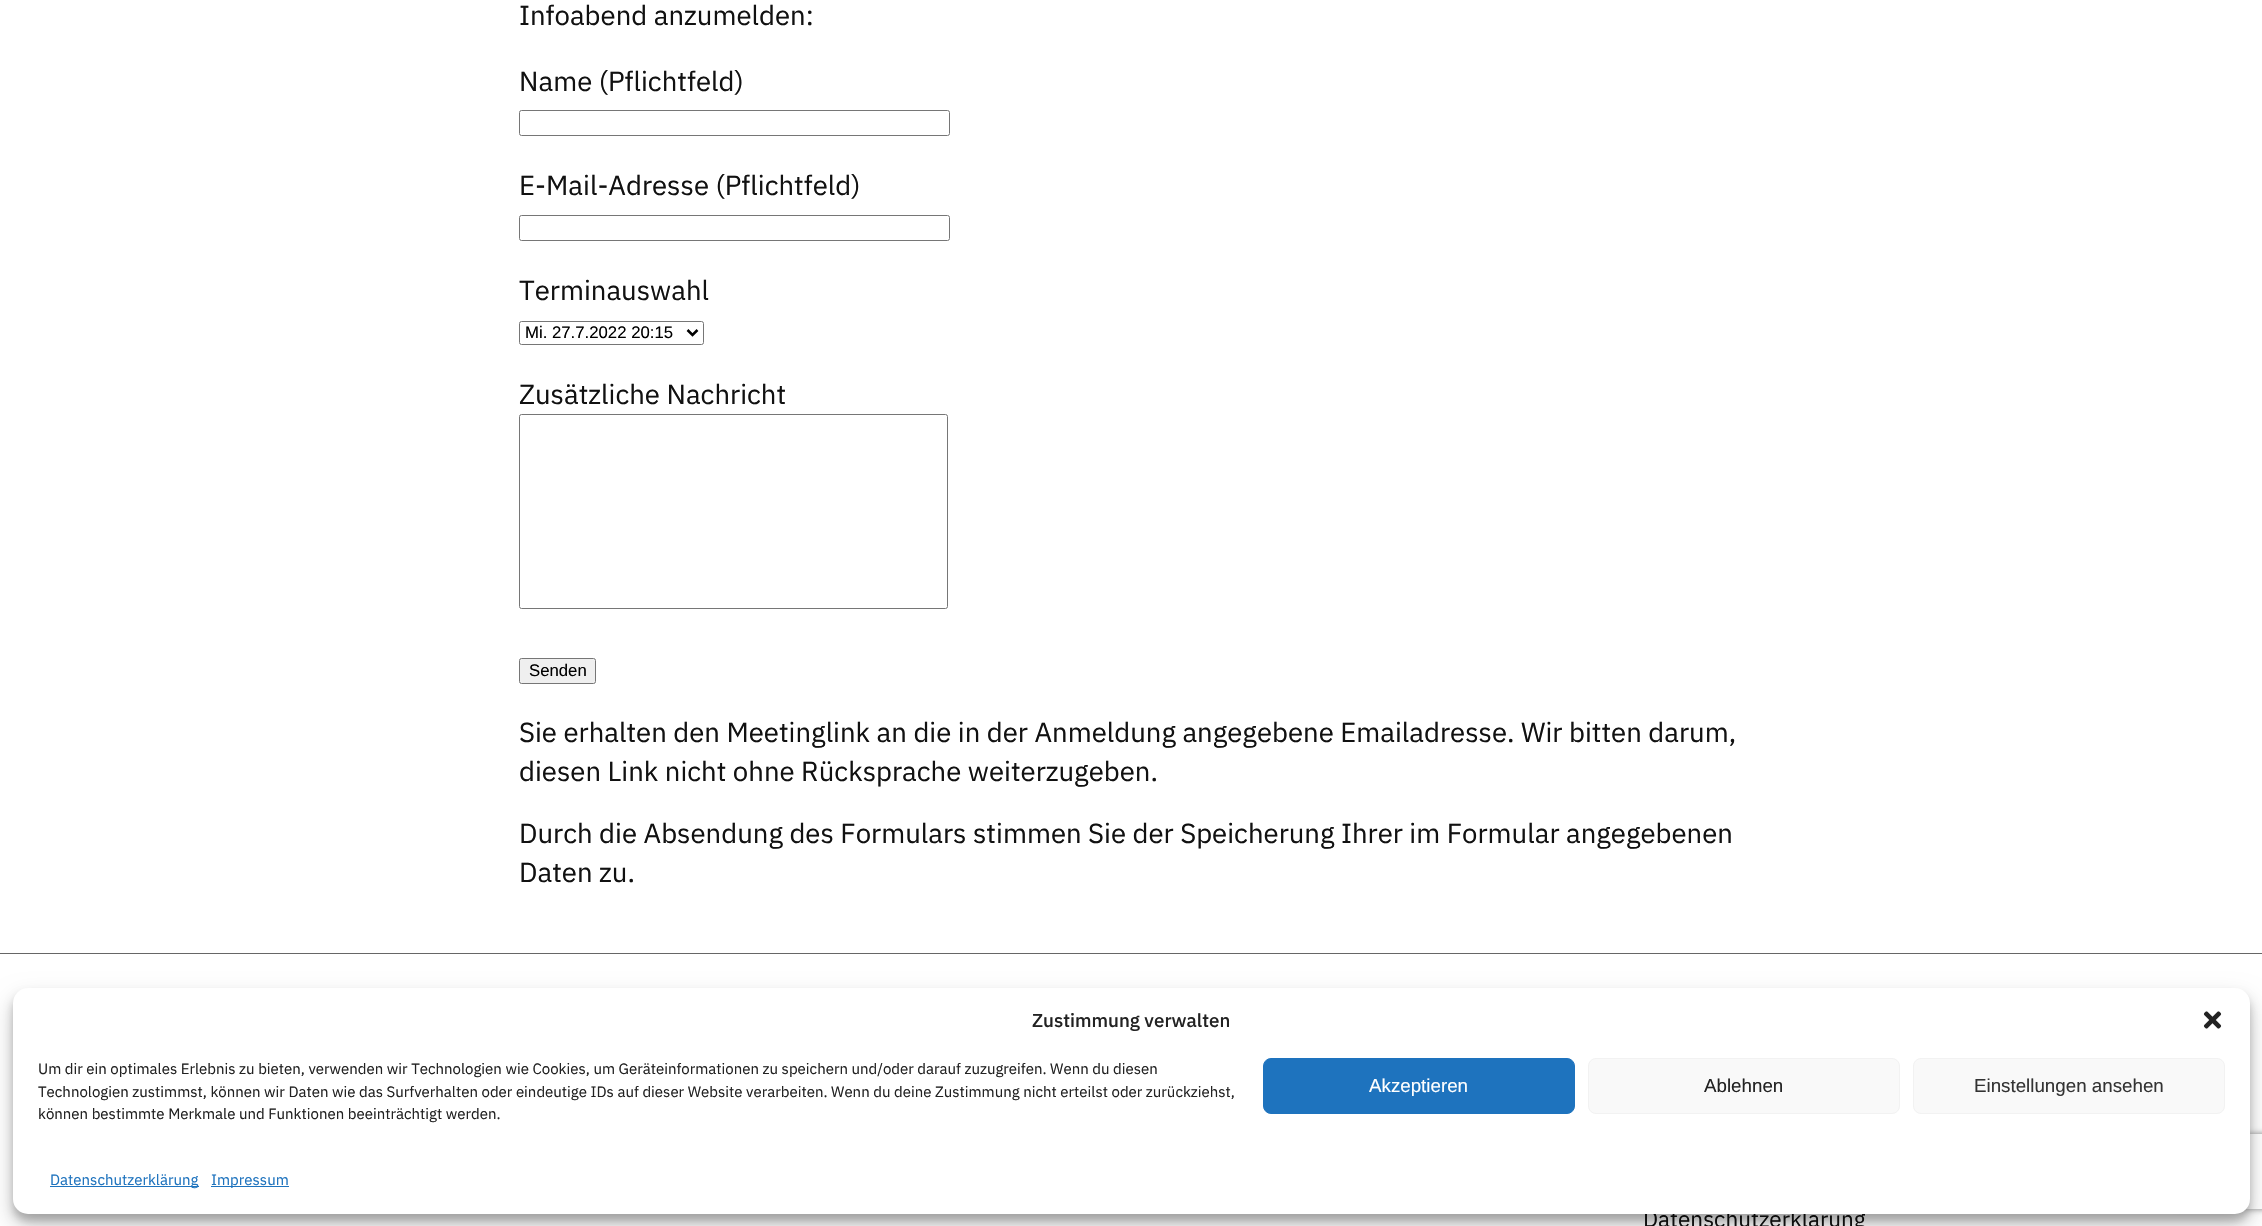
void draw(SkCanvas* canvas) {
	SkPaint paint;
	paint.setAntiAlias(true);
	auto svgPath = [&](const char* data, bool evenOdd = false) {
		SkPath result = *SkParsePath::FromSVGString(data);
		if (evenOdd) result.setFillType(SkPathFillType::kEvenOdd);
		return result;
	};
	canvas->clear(0xffffffff);
	SkFont f1(fontMgr->matchFamilyStyle("IBM Plex Sans", SkFontStyle::Normal()), 27.5);
	f1.setSubpixel(true);
	paint.setColor(0xff111111);
	canvas->drawString("Infoabend anzumelden:", 519, 25, f1, paint);
	canvas->drawString("Name (Pflichtfeld)", 519, 91, f1, paint);
	paint.setStroke(true);
	paint.setStrokeWidth(1);
	paint.setColor(0xff767676);
	canvas->drawRoundRect(SkRect::MakeXYWH(519.5, 110.5, 430, 25), 2, 2, paint);
	paint.setStroke(false);
	paint.setColor(0xff111111);
	canvas->drawString("E-Mail-Adresse (Pflichtfeld)", 519, 195, f1, paint);
	paint.setStroke(true);
	paint.setColor(0xff767676);
	canvas->drawRoundRect(SkRect::MakeXYWH(519.5, 215.5, 430, 25), 2, 2, paint);
	paint.setStroke(false);
	paint.setColor(0xff111111);
	canvas->drawString("Terminauswahl", 519, 300, f1, paint);
	paint.setStroke(true);
	paint.setColor(0xff767676);
	canvas->drawRoundRect(SkRect::MakeXYWH(519.5, 321.5, 184, 23), 2, 2, paint);
	paint.setStrokeWidth(2.5);
	paint.setColor(0xff000000);
	canvas->drawPath(svgPath("M687.5 330L692.5 335L697.5 330"), paint);
	SkFont f2(fontMgr->matchFamilyStyle("Liberation Sans", SkFontStyle::Normal()), 16.75);
	f2.setSubpixel(true);
	paint.setStroke(false);
	canvas->drawString("Mi. 27.7.2022 20:15", 525, 338, f2, paint);
	paint.setColor(0xff111111);
	canvas->drawString("Zusätzliche Nachricht", 519, 404, f1, paint);
	paint.setStroke(true);
	paint.setStrokeWidth(1);
	paint.setColor(0xff767676);
	canvas->drawRoundRect(SkRect::MakeXYWH(519.5, 414.5, 428, 194), 2, 2, paint);
	paint.setStroke(false);
	paint.setColor(0xffefefef);
	canvas->drawRoundRect(SkRect::MakeXYWH(519.5, 658.5, 76, 25), 2, 2, paint);
	paint.setStroke(true);
	paint.setColor(0xff767676);
	canvas->drawRoundRect(SkRect::MakeXYWH(519.5, 658.5, 76, 25), 2, 2, paint);
	paint.setStroke(false);
	paint.setColor(0xff000000);
	canvas->drawString("Senden", 529, 676, f2, paint);
	paint.setColor(0xff111111);
	canvas->drawString("Sie erhalten den Meetinglink an die in der Anmeldung angegebene Emailadresse. Wir bitten darum,", 519, 742, f1, paint);
	canvas->drawString("diesen Link nicht ohne Rücksprache weiterzugeben.", 519, 781, f1, paint);
	canvas->drawString("Durch die Absendung des Formulars stimmen Sie der Speicherung Ihrer im Formular angegebenen", 519, 843, f1, paint);
	canvas->drawString("Daten zu.", 519, 882, f1, paint);
	paint.setColor(0xff666666);
	canvas->drawRect(SkRect::MakeXYWH(0, 953, 2262, 1), paint);
	SkFont f3(fontMgr->matchFamilyStyle("IBM Plex Sans", SkFontStyle::Normal()), 22.5);
	f3.setSubpixel(true);
	paint.setColor(0xff111111);
	canvas->drawString("Datenschutzerklärung", 1643, 1227, f3, paint);
	paint.setColor(0x3b000000);
	paint.setMaskFilter(SkMaskFilter::MakeBlur(kNormal_SkBlurStyle, 4));
	canvas->drawRoundRect(SkRect::MakeXYWH(13, 995, 2237, 226), 15, 15, paint);
	paint.setMaskFilter(nullptr);
	paint.setColor(0x30000000);
	paint.setMaskFilter(SkMaskFilter::MakeBlur(kNormal_SkBlurStyle, 12.5));
	canvas->drawRoundRect(SkRect::MakeXYWH(13, 1000, 2237, 226), 15, 15, paint);
	paint.setMaskFilter(nullptr);
	canvas->save();
	canvas->clipPath(svgPath("M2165 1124H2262V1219H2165ZM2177.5 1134H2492.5C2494 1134 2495 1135 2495 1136.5V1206.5C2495 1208 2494 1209 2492.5 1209H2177.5C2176 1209 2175 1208 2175 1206.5V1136.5C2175 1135 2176 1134 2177.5 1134Z", true), true);
	paint.setColor(0xff808080);
	paint.setMaskFilter(SkMaskFilter::MakeBlur(kNormal_SkBlurStyle, 3));
	canvas->drawRoundRect(SkRect::MakeXYWH(2175, 1134, 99, 75), 2.5, 2.5, paint);
	paint.setMaskFilter(nullptr);
	canvas->restore();
	paint.setColor(0xffffffff);
	canvas->drawRoundRect(SkRect::MakeXYWH(13, 988, 2237, 226), 15, 15, paint);
	SkFont f4(fontMgr->matchFamilyStyle("IBM Plex Sans", SkFontStyle(500, SkFontStyle::kNormal_Width, SkFontStyle::kUpright_Slant)), 18.75);
	f4.setSubpixel(true);
	paint.setColor(0xff222222);
	canvas->drawString("Zustimmung verwalten", 1032, 1027, f4, paint);
	canvas->drawImageRect(SkImages::DeferredFromEncodedData(SkData::MakeFromFileName("img1.png")), SkRect::MakeXYWH(2203, 1011, 19, 18), SkSamplingOptions());
	SkFont f5(fontMgr->matchFamilyStyle("IBM Plex Sans", SkFontStyle::Normal()), 15);
	f5.setSubpixel(true);
	canvas->drawString("Um dir ein optimales Erlebnis zu bieten, verwenden wir Technologien wie Cookies, um Geräteinformationen zu speichern und/oder darauf zuzugreifen. Wenn du diesen", 38, 1074, f5, paint);
	canvas->drawString("Technologien zustimmst, können wir Daten wie das Surfverhalten oder eindeutige IDs auf dieser Website verarbeiten. Wenn du deine Zustimmung nicht erteilst oder zurückziehst,", 38, 1097, f5, paint);
	canvas->drawString("können bestimmte Merkmale und Funktionen beeinträchtigt werden.", 38, 1119, f5, paint);
	paint.setColor(0xff1e73be);
	canvas->drawRoundRect(SkRect::MakeXYWH(1263.5, 1058.5, 311, 55), 7.5, 7.5, paint);
	paint.setStroke(true);
	canvas->drawRoundRect(SkRect::MakeXYWH(1263.5, 1058.5, 311, 55), 7.5, 7.5, paint);
	SkFont f6(fontMgr->matchFamilyStyle("Liberation Sans", SkFontStyle::Normal()), 18.75);
	f6.setSubpixel(true);
	paint.setStroke(false);
	paint.setColor(0xffffffff);
	canvas->drawString("Akzeptieren", 1369, 1092, f6, paint);
	paint.setColor(0xfff9f9f9);
	canvas->drawRoundRect(SkRect::MakeXYWH(1588.5, 1058.5, 311, 55), 7.5, 7.5, paint);
	paint.setStroke(true);
	paint.setColor(0xfff2f2f2);
	canvas->drawRoundRect(SkRect::MakeXYWH(1588.5, 1058.5, 311, 55), 7.5, 7.5, paint);
	paint.setStroke(false);
	paint.setColor(0xff222222);
	canvas->drawString("Ablehnen", 1704, 1092, f6, paint);
	paint.setColor(0xfff9f9f9);
	canvas->drawRoundRect(SkRect::MakeXYWH(1913.5, 1058.5, 311, 55), 7.5, 7.5, paint);
	paint.setStroke(true);
	paint.setColor(0xfff2f2f2);
	canvas->drawRoundRect(SkRect::MakeXYWH(1913.5, 1058.5, 311, 55), 7.5, 7.5, paint);
	paint.setStroke(false);
	paint.setColor(0xff333333);
	canvas->drawString("Einstellungen ansehen", 1974, 1092, f6, paint);
	paint.setColor(0xff1e73be);
	canvas->drawRect(SkRect::MakeXYWH(50, 1186, 149, 1), paint);
	canvas->drawString("Datenschutzerklärung", 50, 1185, f5, paint);
	canvas->drawRect(SkRect::MakeXYWH(211, 1186, 78, 1), paint);
	canvas->drawString("Impressum", 211, 1185, f5, paint);
}
